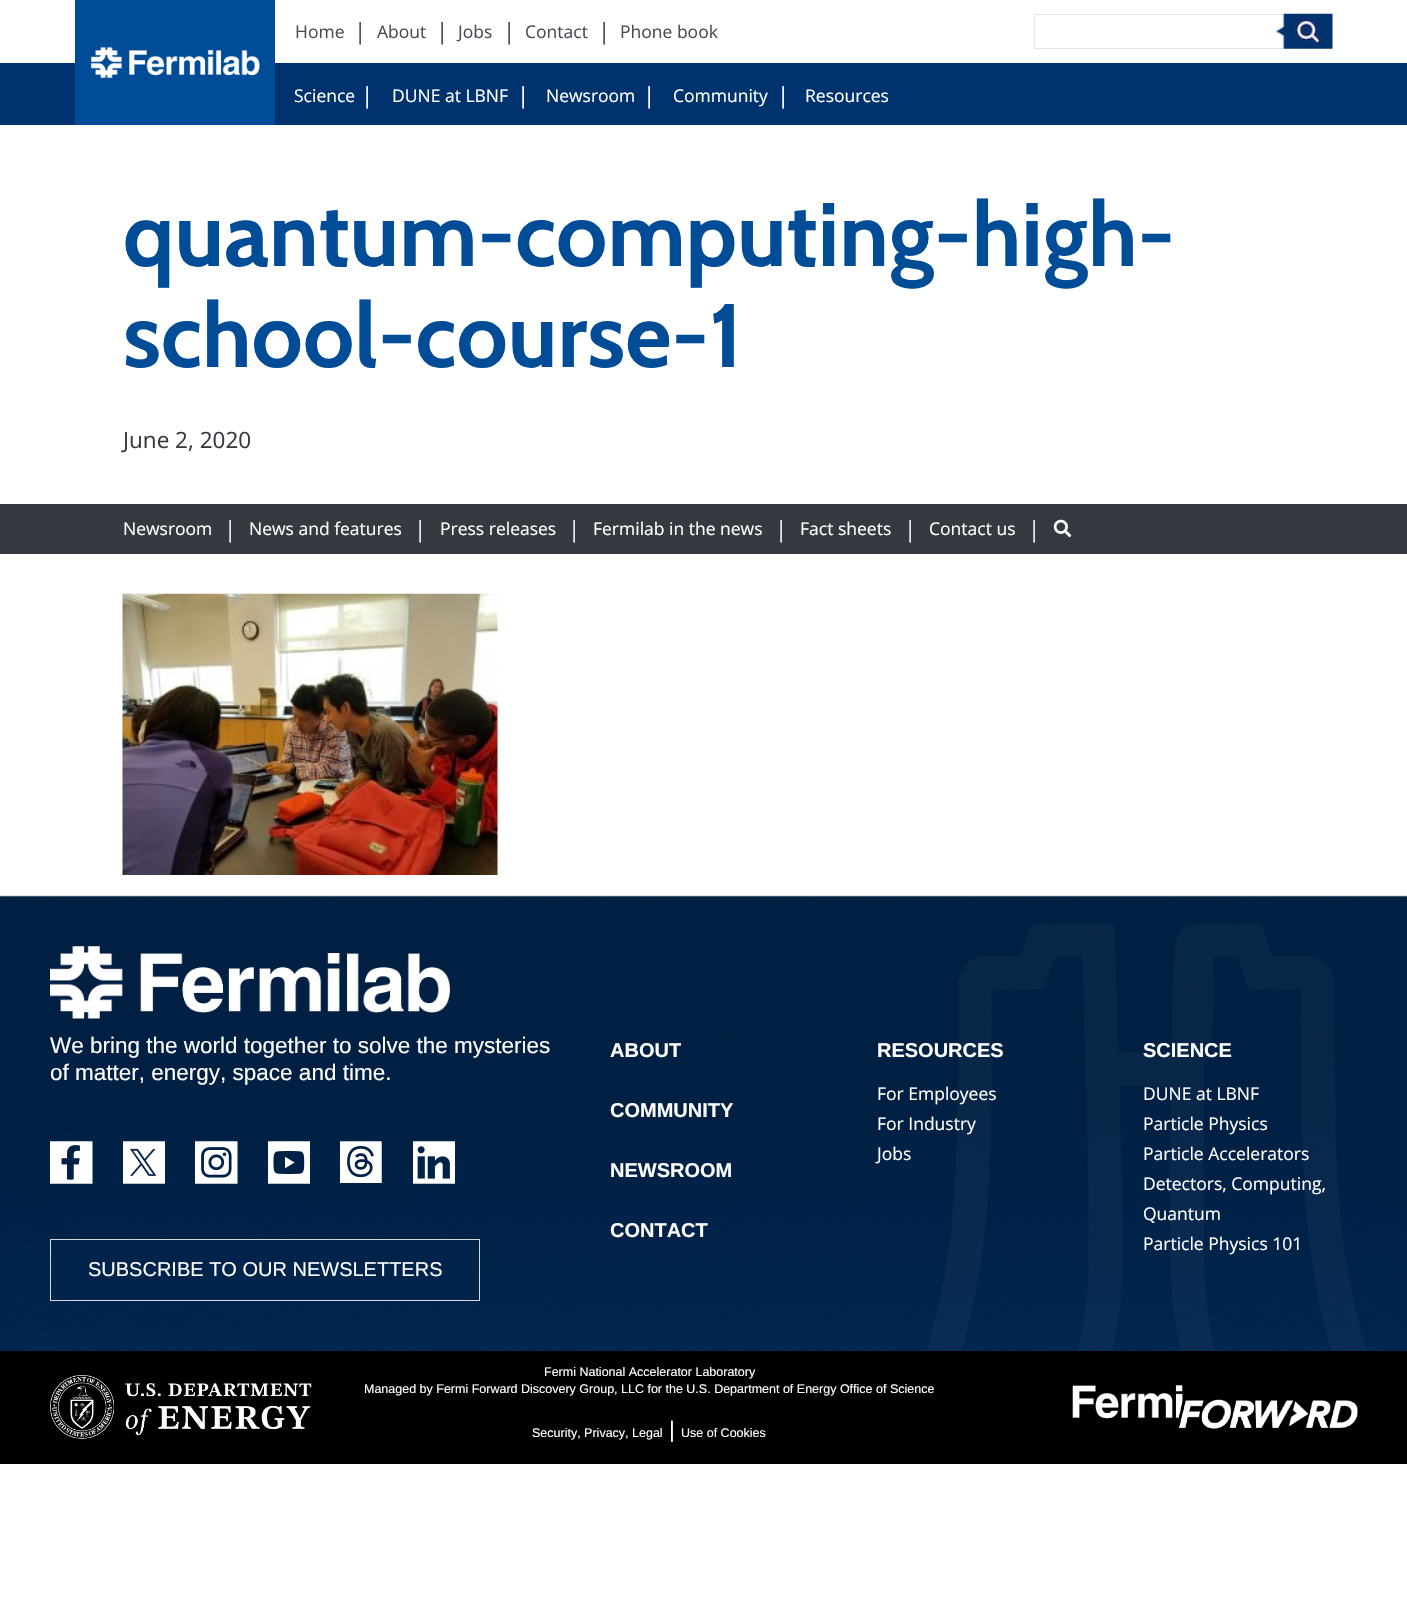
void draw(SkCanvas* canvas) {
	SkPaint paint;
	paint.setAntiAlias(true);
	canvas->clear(0xffffffff);
	paint.setColor(0xff00336e);
	canvas->drawRect(SkRect::MakeXYWH(0, 63, 1407, 62), paint);
	canvas->drawImageRect(SkImages::DeferredFromEncodedData(SkData::MakeFromFileName("img1.png")), SkRect::MakeXYWH(75, 0, 200, 125), SkSamplingOptions());
	SkFont f1(fontMgr->matchFamilyStyle("Open Sans", SkFontStyle::Normal()), 17.5);
	f1.setSubpixel(true);
	paint.setColor(0xff474c55);
	canvas->drawString("Home", 295, 38, f1, paint);
	SkFont f2(fontMgr->matchFamilyStyle("Open Sans", SkFontStyle::Normal()), 22.5);
	f2.setSubpixel(true);
	canvas->drawString("|", 354, 39, f2, paint);
	canvas->drawString("About", 377, 38, f1, paint);
	canvas->drawString("|", 436, 39, f2, paint);
	canvas->drawString("Jobs", 458, 38, f1, paint);
	canvas->drawString("|", 503, 39, f2, paint);
	canvas->drawString("Contact", 525, 38, f1, paint);
	canvas->drawString("|", 598, 39, f2, paint);
	canvas->drawString("Phone book", 620, 38, f1, paint);
	paint.setStroke(true);
	paint.setStrokeWidth(1);
	paint.setColor(0xffe5e5e5);
	canvas->drawRect(SkRect::MakeXYWH(1034.5, 14.5, 249, 34), paint);
	canvas->drawImageRect(SkImages::DeferredFromEncodedData(SkData::MakeFromFileName("img2.png")), SkRect::MakeXYWH(1276, 13, 57, 36), SkSamplingOptions());
	paint.setStroke(false);
	paint.setColor(0xffffffff);
	canvas->drawString("Science", 294, 102, f1, paint);
	canvas->drawString("|", 361, 103, f2, paint);
	canvas->drawString("DUNE at LBNF", 392, 102, f1, paint);
	canvas->drawString("|", 517, 103, f2, paint);
	canvas->drawString("Newsroom", 546, 102, f1, paint);
	canvas->drawString("|", 643, 103, f2, paint);
	canvas->drawString("Community", 673, 102, f1, paint);
	canvas->drawString("|", 777, 103, f2, paint);
	canvas->drawString("Resources", 805, 102, f1, paint);
	SkFont f3(fontMgr->matchFamilyStyle("Cabin", SkFontStyle::Bold()), 90);
	f3.setSubpixel(true);
	paint.setColor(0xff004c97);
	canvas->drawString("quantum-computing-high-", 123, 266, f3, paint);
	canvas->drawString("school-course-1", 123, 367, f3, paint);
	paint.setColor(0xff353a40);
	canvas->drawString("June 2, 2020", 123, 448, f2, paint);
	canvas->drawRect(SkRect::MakeXYWH(0, 504, 1407, 50), paint);
	paint.setColor(0xffffffff);
	canvas->drawString("Newsroom", 123, 535, f1, paint);
	paint.setColor(0xffededee);
	canvas->drawString("|", 224, 537, f2, paint);
	paint.setColor(0xffffffff);
	canvas->drawString("News and features", 249, 535, f1, paint);
	paint.setColor(0xffededee);
	canvas->drawString("|", 414, 537, f2, paint);
	paint.setColor(0xffffffff);
	canvas->drawString("Press releases", 440, 535, f1, paint);
	paint.setColor(0xffededee);
	canvas->drawString("|", 568, 537, f2, paint);
	paint.setColor(0xffffffff);
	canvas->drawString("Fermilab in the news", 593, 535, f1, paint);
	paint.setColor(0xffededee);
	canvas->drawString("|", 775, 537, f2, paint);
	paint.setColor(0xffffffff);
	canvas->drawString("Fact sheets", 800, 535, f1, paint);
	paint.setColor(0xffededee);
	canvas->drawString("|", 904, 537, f2, paint);
	paint.setColor(0xffffffff);
	canvas->drawString("Contact us", 929, 535, f1, paint);
	paint.setColor(0xffededee);
	canvas->drawString("|", 1028, 537, f2, paint);
	canvas->drawImageRect(SkImages::DeferredFromEncodedData(SkData::MakeFromFileName("img3.png")), SkRect::MakeXYWH(1053, 519, 19, 19), SkSamplingOptions());
	canvas->drawImageRect(SkImages::DeferredFromEncodedData(SkData::MakeFromFileName("img4.png")), SkRect::MakeXYWH(122, 593, 376, 282), SkSamplingOptions());
	canvas->drawImageRect(SkImages::DeferredFromEncodedData(SkData::MakeFromFileName("img5.png")), SkRect::MakeXYWH(0, 896, 1407, 455), SkSamplingOptions());
	paint.setColor(0xffe6e6e6);
	canvas->drawRect(SkRect::MakeXYWH(0, 895, 1407, 1), paint);
	canvas->drawImageRect(SkImages::DeferredFromEncodedData(SkData::MakeFromFileName("img6.png")), SkRect::MakeXYWH(50, 946, 400, 73), SkSamplingOptions());
	SkFont f4(fontMgr->matchFamilyStyle("Liberation Sans", SkFontStyle::Normal()), 22.5);
	f4.setSubpixel(true);
	paint.setColor(0xffffffff);
	canvas->drawString("We bring the world together to solve the mysteries", 50, 1053, f4, paint);
	canvas->drawString("of matter, energy, space and time.", 50, 1080, f4, paint);
	canvas->drawImageRect(SkImages::DeferredFromEncodedData(SkData::MakeFromFileName("img7.png")), SkRect::MakeXYWH(50, 1141, 43, 43), SkSamplingOptions());
	canvas->drawImageRect(SkImages::DeferredFromEncodedData(SkData::MakeFromFileName("img8.png")), SkRect::MakeXYWH(123, 1141, 42, 43), SkSamplingOptions());
	canvas->drawImageRect(SkImages::DeferredFromEncodedData(SkData::MakeFromFileName("img9.png")), SkRect::MakeXYWH(195, 1141, 43, 43), SkSamplingOptions());
	canvas->drawImageRect(SkImages::DeferredFromEncodedData(SkData::MakeFromFileName("img10.png")), SkRect::MakeXYWH(268, 1141, 42, 43), SkSamplingOptions());
	canvas->drawImageRect(SkImages::DeferredFromEncodedData(SkData::MakeFromFileName("img11.png")), SkRect::MakeXYWH(340, 1141, 42, 42), SkSamplingOptions());
	canvas->drawImageRect(SkImages::DeferredFromEncodedData(SkData::MakeFromFileName("img12.png")), SkRect::MakeXYWH(413, 1141, 42, 43), SkSamplingOptions());
	paint.setStroke(true);
	paint.setColor(0xffd9d9d9);
	canvas->drawRect(SkRect::MakeXYWH(50.5, 1239.5, 429, 61), paint);
	SkFont f5(fontMgr->matchFamilyStyle("Liberation Sans", SkFontStyle::Normal()), 20);
	f5.setSubpixel(true);
	paint.setStroke(false);
	paint.setColor(0xffffffff);
	canvas->drawString("SUBSCRIBE TO OUR NEWSLETTERS", 88, 1276, f5, paint);
	SkFont f6(fontMgr->matchFamilyStyle("Liberation Sans", SkFontStyle::Bold()), 20);
	f6.setSubpixel(true);
	canvas->drawString("ABOUT", 610, 1057, f6, paint);
	canvas->drawString("RESOURCES", 877, 1057, f6, paint);
	canvas->drawString("For Employees", 877, 1100, f1, paint);
	canvas->drawString("For Industry", 877, 1130, f1, paint);
	canvas->drawString("Jobs", 877, 1160, f1, paint);
	canvas->drawString("SCIENCE", 1143, 1057, f6, paint);
	canvas->drawString("DUNE at LBNF", 1143, 1100, f1, paint);
	canvas->drawString("Particle Physics", 1143, 1130, f1, paint);
	canvas->drawString("Particle Accelerators", 1143, 1160, f1, paint);
	canvas->drawString("Detectors, Computing,", 1143, 1190, f1, paint);
	canvas->drawString("Quantum", 1143, 1220, f1, paint);
	canvas->drawString("Particle Physics 101", 1143, 1250, f1, paint);
	canvas->drawString("COMMUNITY", 610, 1117, f6, paint);
	canvas->drawString("NEWSROOM", 610, 1177, f6, paint);
	canvas->drawString("CONTACT", 610, 1237, f6, paint);
	paint.setColor(0xff000000);
	canvas->drawRect(SkRect::MakeXYWH(0, 1351, 1407, 113), paint);
	canvas->drawImageRect(SkImages::DeferredFromEncodedData(SkData::MakeFromFileName("img13.png")), SkRect::MakeXYWH(50, 1375, 262, 64), SkSamplingOptions());
	SkFont f7(fontMgr->matchFamilyStyle("Liberation Sans", SkFontStyle::Normal()), 12.5);
	f7.setSubpixel(true);
	paint.setColor(0xffffffff);
	canvas->drawString("Fermi National Accelerator Laboratory", 544, 1376, f7, paint);
	canvas->drawString("Managed by Fermi Forward Discovery Group, LLC for the U.S. Department of Energy Office of Science", 364, 1393, f7, paint);
	canvas->drawString("Security, Privacy, Legal", 532, 1437, f7, paint);
	canvas->drawString("|", 669, 1437, f4, paint);
	canvas->drawString("Use of Cookies", 681, 1437, f7, paint);
	canvas->drawImageRect(SkImages::DeferredFromEncodedData(SkData::MakeFromFileName("img14.png")), SkRect::MakeXYWH(1072, 1385, 286, 44), SkSamplingOptions());
}
